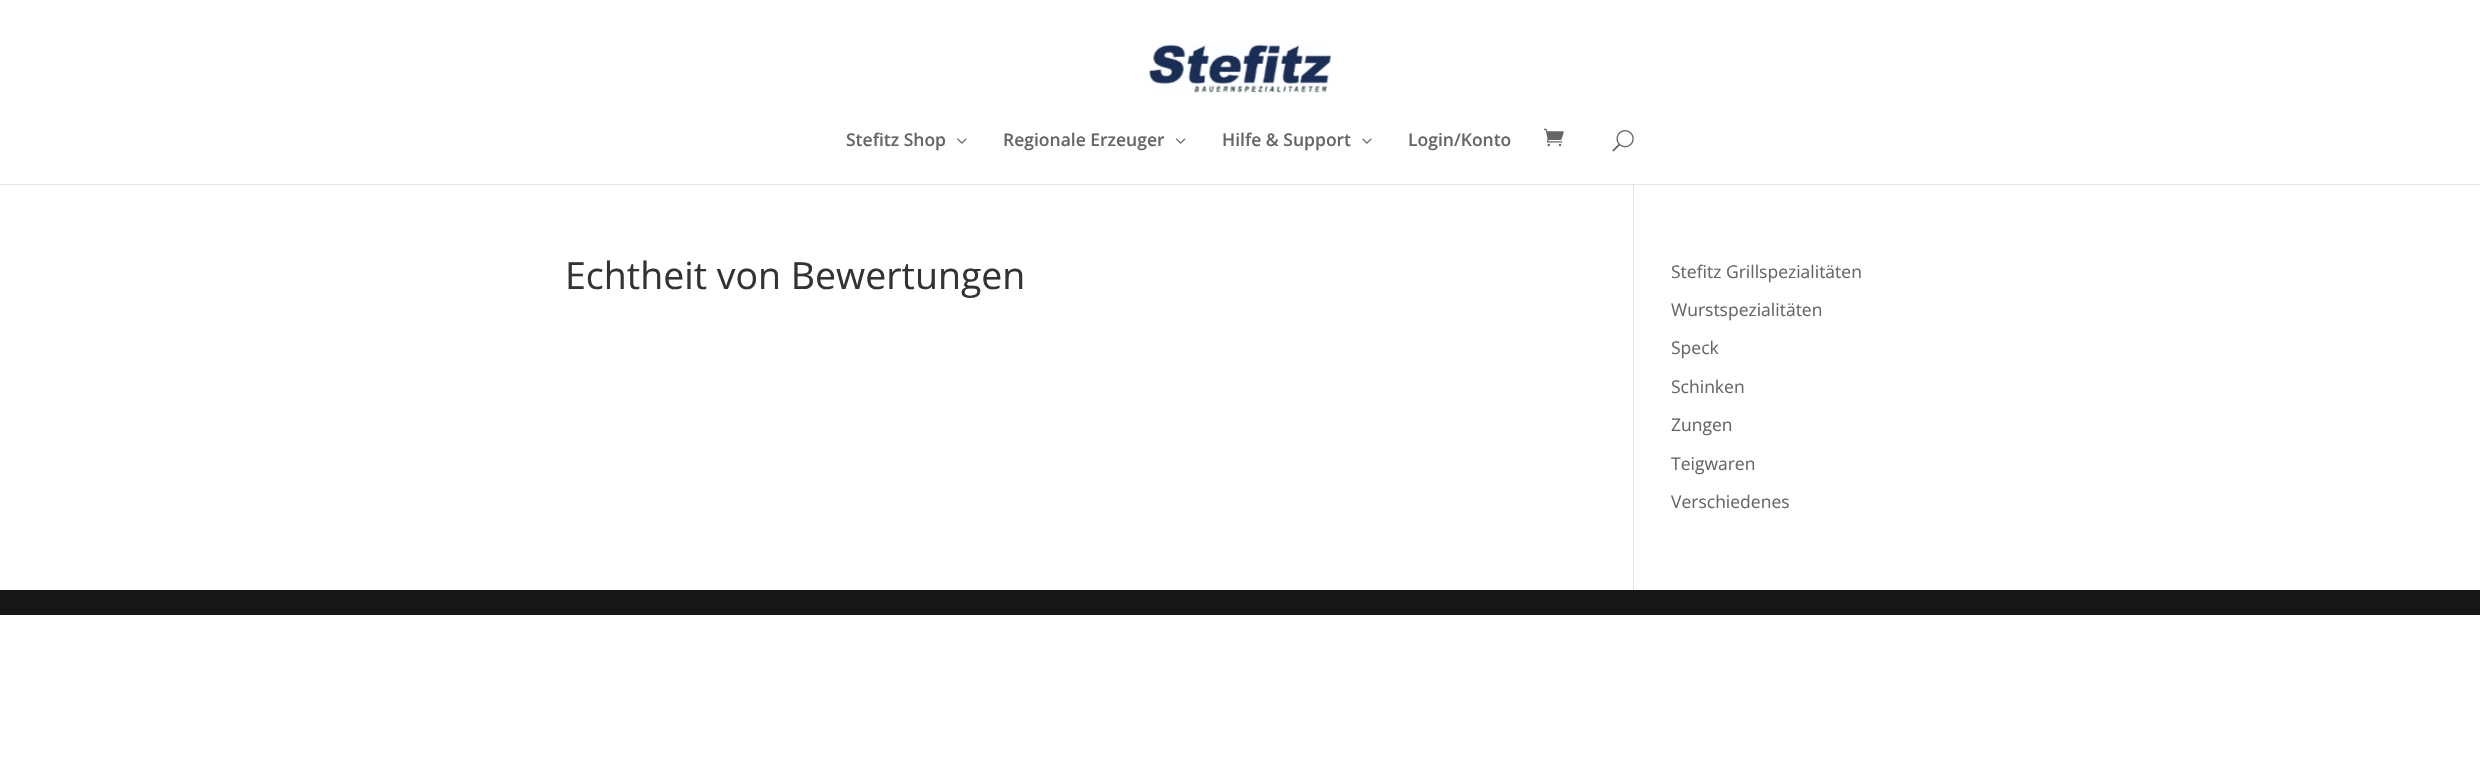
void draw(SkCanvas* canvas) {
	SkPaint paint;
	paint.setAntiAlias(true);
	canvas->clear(0xffffffff);
	paint.setColor(0xffe6e6e6);
	canvas->drawRect(SkRect::MakeXYWH(0, 184, 2480, 1), paint);
	canvas->drawImageRect(SkImages::DeferredFromEncodedData(SkData::MakeFromFileName("img1.png")), SkRect::MakeXYWH(1149, 44, 183, 49), SkSamplingOptions());
	SkFont f1(fontMgr->matchFamilyStyle("Open Sans", SkFontStyle(600, SkFontStyle::kNormal_Width, SkFontStyle::kUpright_Slant)), 17.5);
	f1.setSubpixel(true);
	paint.setColor(0xff666666);
	canvas->drawString("Stefitz Shop", 846, 146, f1, paint);
	canvas->drawImageRect(SkImages::DeferredFromEncodedData(SkData::MakeFromFileName("img2.png")), SkRect::MakeXYWH(957, 138, 10, 6), SkSamplingOptions());
	canvas->drawString("Regionale Erzeuger", 1003, 146, f1, paint);
	canvas->drawImageRect(SkImages::DeferredFromEncodedData(SkData::MakeFromFileName("img3.png")), SkRect::MakeXYWH(1176, 138, 10, 6), SkSamplingOptions());
	canvas->drawString("Hilfe & Support", 1222, 146, f1, paint);
	canvas->drawImageRect(SkImages::DeferredFromEncodedData(SkData::MakeFromFileName("img2.png")), SkRect::MakeXYWH(1362, 138, 10, 6), SkSamplingOptions());
	canvas->drawString("Login/Konto", 1408, 146, f1, paint);
	canvas->drawImageRect(SkImages::DeferredFromEncodedData(SkData::MakeFromFileName("img4.png")), SkRect::MakeXYWH(1543, 128, 21, 19), SkSamplingOptions());
	canvas->drawImageRect(SkImages::DeferredFromEncodedData(SkData::MakeFromFileName("img5.png")), SkRect::MakeXYWH(1612, 130, 22, 22), SkSamplingOptions());
	paint.setColor(0xffe2e2e2);
	canvas->drawRect(SkRect::MakeXYWH(1633, 184, 1, 406), paint);
	paint.setColor(0xffcbcbcb);
	canvas->drawRect(SkRect::MakeXYWH(1633, 184, 1, 1), paint);
	SkFont f2(fontMgr->matchFamilyStyle("Open Sans", SkFontStyle::Normal()), 37.5);
	f2.setSubpixel(true);
	paint.setColor(0xff333333);
	canvas->drawString("Echtheit von Bewertungen", 565, 289, f2, paint);
	SkFont f3(fontMgr->matchFamilyStyle("Open Sans", SkFontStyle::Normal()), 17.5);
	f3.setSubpixel(true);
	paint.setColor(0xff666666);
	canvas->drawString("Stefitz Grillspezialitäten", 1671, 278, f3, paint);
	canvas->drawString("Wurstspezialitäten", 1671, 316, f3, paint);
	canvas->drawString("Speck", 1671, 354, f3, paint);
	canvas->drawString("Schinken", 1671, 393, f3, paint);
	canvas->drawString("Zungen", 1671, 431, f3, paint);
	canvas->drawString("Teigwaren", 1671, 470, f3, paint);
	canvas->drawString("Verschiedenes", 1671, 508, f3, paint);
	paint.setColor(0xff171717);
	canvas->drawRect(SkRect::MakeXYWH(0, 590, 2480, 25), paint);
}
